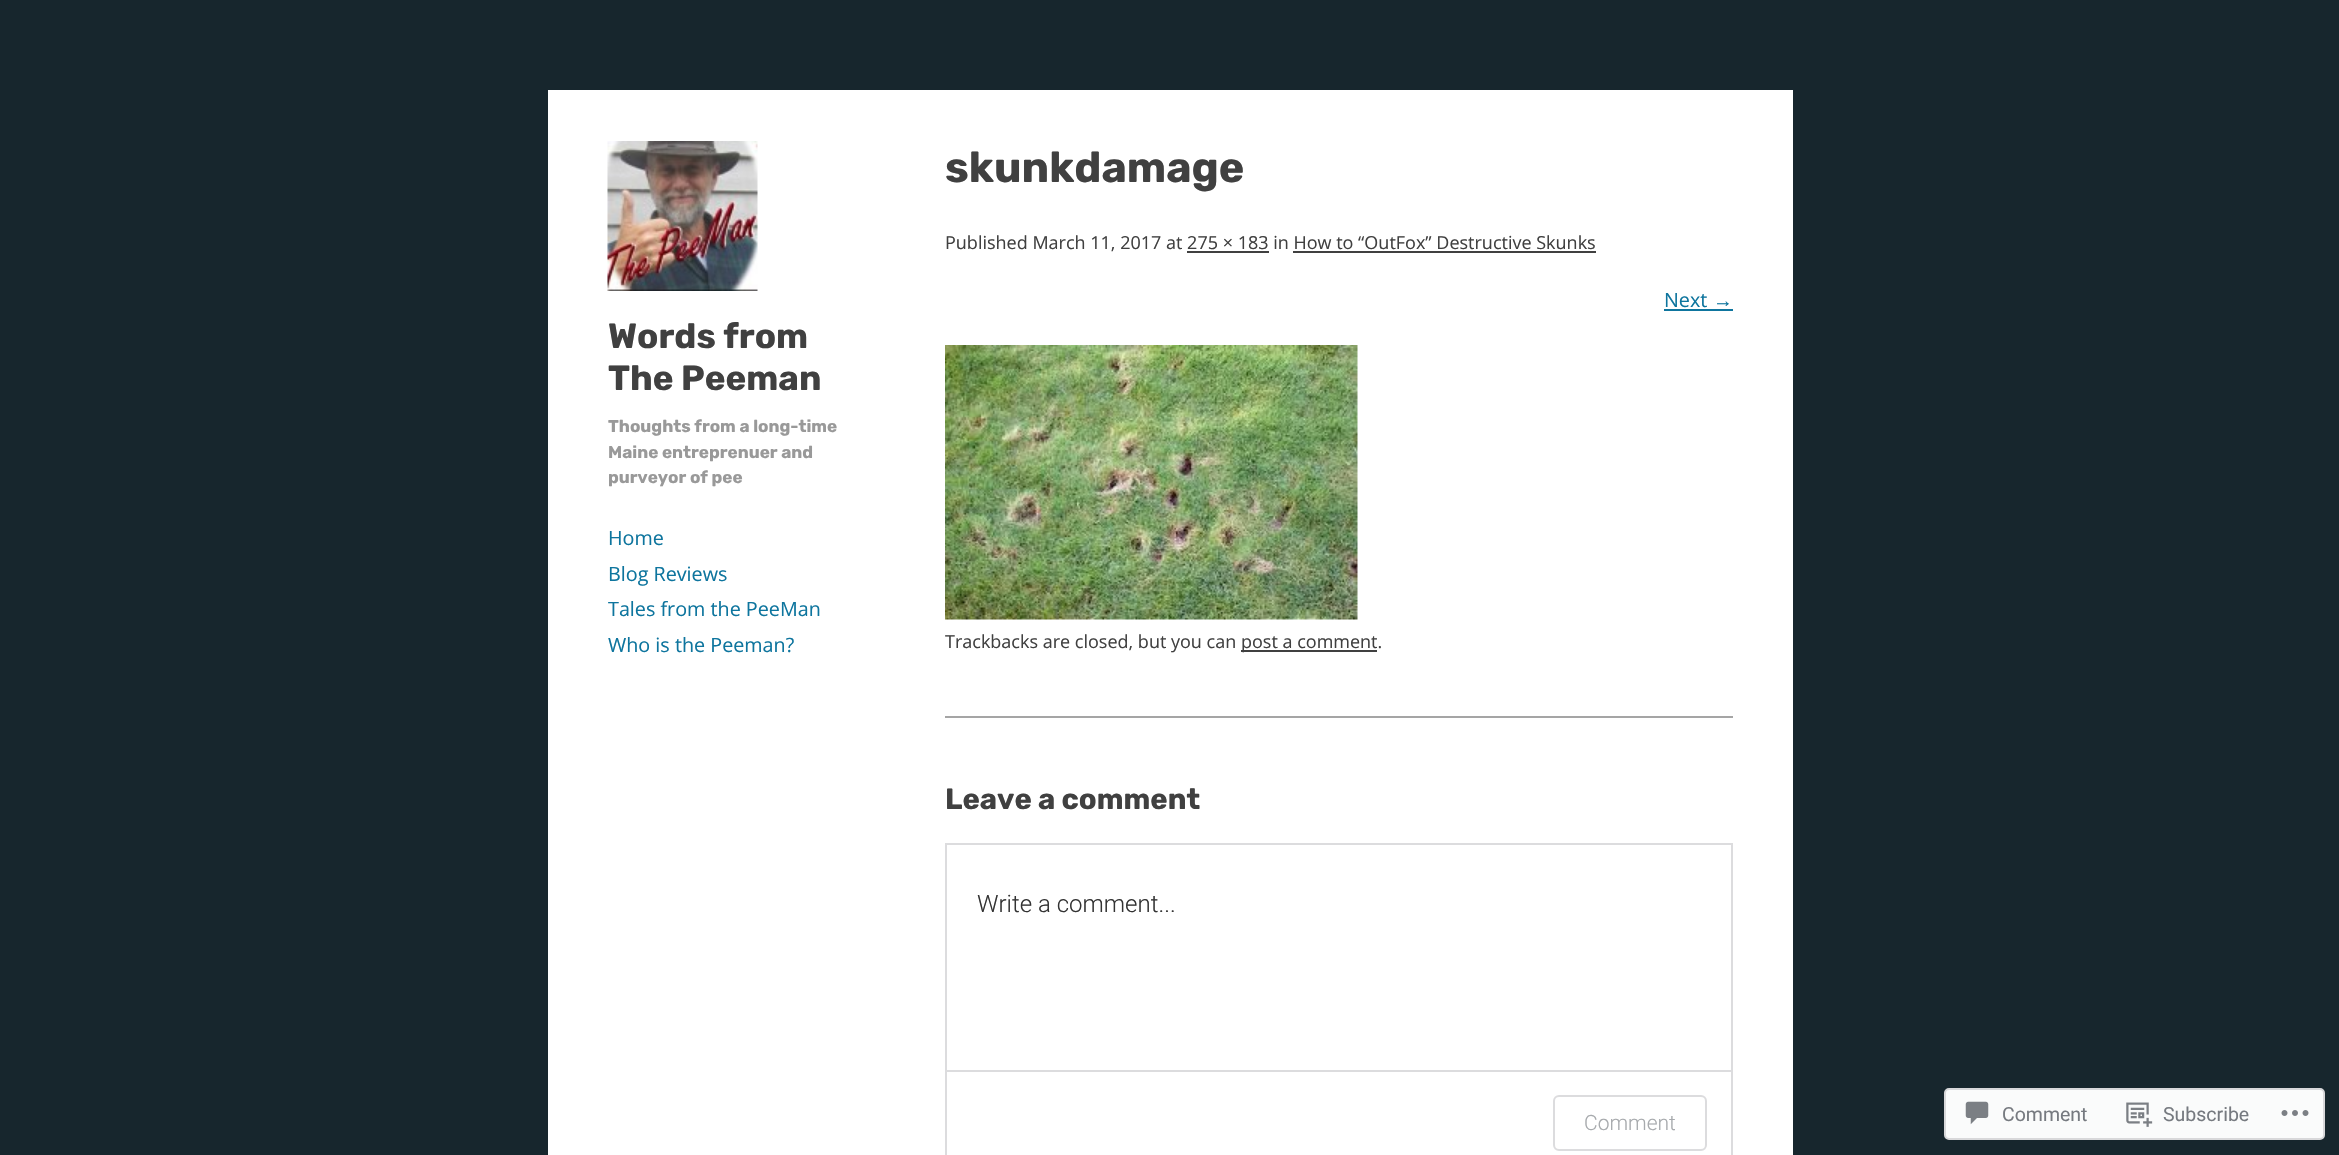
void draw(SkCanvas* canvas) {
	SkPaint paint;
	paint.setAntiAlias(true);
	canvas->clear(0xff17262d);
	paint.setColor(0xffffffff);
	canvas->drawRect(SkRect::MakeXYWH(548, 90, 1245, 1065), paint);
	canvas->drawImageRect(SkImages::DeferredFromEncodedData(SkData::MakeFromFileName("img1.png")), SkRect::MakeXYWH(607, 141, 151, 150), SkSamplingOptions());
	SkFont f1(fontMgr->matchFamilyStyle("Rubik", SkFontStyle(300, SkFontStyle::kNormal_Width, SkFontStyle::kUpright_Slant)), 35);
	f1.setSubpixel(true);
	paint.setColor(0xff404040);
	canvas->drawString("Words from", 608, 348, f1, paint);
	canvas->drawString("The Peeman", 608, 390, f1, paint);
	SkFont f2(fontMgr->matchFamilyStyle("Rubik", SkFontStyle(300, SkFontStyle::kNormal_Width, SkFontStyle::kUpright_Slant)), 17.1);
	f2.setSubpixel(true);
	paint.setColor(0xff999999);
	canvas->drawString("Thoughts from a long-time", 608, 432, f2, paint);
	canvas->drawString("Maine entreprenuer and", 608, 458, f2, paint);
	canvas->drawString("purveyor of pee", 608, 483, f2, paint);
	SkFont f3(fontMgr->matchFamilyStyle("Open Sans", SkFontStyle::Normal()), 19.75);
	f3.setSubpixel(true);
	paint.setColor(0xff0e759e);
	canvas->drawString("Home", 608, 545, f3, paint);
	canvas->drawString("Blog Reviews", 608, 581, f3, paint);
	canvas->drawString("Tales from the PeeMan", 608, 616, f3, paint);
	canvas->drawString("Who is the Peeman?", 608, 652, f3, paint);
	paint.setColor(0xffa5a5a5);
	canvas->drawRect(SkRect::MakeXYWH(945, 716, 788, 2), paint);
	SkFont f4(fontMgr->matchFamilyStyle("Rubik", SkFontStyle(300, SkFontStyle::kNormal_Width, SkFontStyle::kUpright_Slant)), 43);
	f4.setSubpixel(true);
	paint.setColor(0xff404040);
	canvas->drawString("skunkdamage", 945, 182, f4, paint);
	SkFont f5(fontMgr->matchFamilyStyle("Open Sans", SkFontStyle::Normal()), 18);
	f5.setSubpixel(true);
	canvas->drawString("Published March 11, 2017 at 275 × 183 in How to “OutFox” Destructive Skunks", 945, 249, f5, paint);
	canvas->drawRect(SkRect::MakeXYWH(1187, 251, 82, 2), paint);
	canvas->drawRect(SkRect::MakeXYWH(1293, 251, 303, 2), paint);
	paint.setColor(0xff0e759e);
	canvas->drawString("Next", 1664, 307, f3, paint);
	SkFont f6(fontMgr->matchFamilyStyle("Liberation Sans", SkFontStyle::Normal()), 19.75);
	f6.setSubpixel(true);
	canvas->drawString("→", 1713, 307, f6, paint);
	canvas->drawRect(SkRect::MakeXYWH(1664, 309, 69, 2), paint);
	canvas->drawImageRect(SkImages::DeferredFromEncodedData(SkData::MakeFromFileName("img2.png")), SkRect::MakeXYWH(945, 345, 413, 275), SkSamplingOptions());
	paint.setColor(0xff404040);
	canvas->drawString("Trackbacks are closed, but you can", 945, 648, f5, paint);
	canvas->drawRect(SkRect::MakeXYWH(1241, 650, 136, 2), paint);
	canvas->drawString("post a comment.", 1241, 648, f5, paint);
	SkFont f7(fontMgr->matchFamilyStyle("Rubik", SkFontStyle(300, SkFontStyle::kNormal_Width, SkFontStyle::kUpright_Slant)), 29.25);
	f7.setSubpixel(true);
	canvas->drawString("Leave a comment", 945, 809, f7, paint);
	paint.setStroke(true);
	paint.setStrokeWidth(2);
	paint.setColor(0xffdcdcde);
	canvas->drawRect(SkRect::MakeXYWH(946, 844, 786, 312), paint);
	SkFont f8(fontMgr->matchFamilyStyle("Roboto", SkFontStyle(300, SkFontStyle::kNormal_Width, SkFontStyle::kUpright_Slant)), 24);
	f8.setSubpixel(true);
	paint.setStroke(false);
	paint.setColor(0xff333333);
	canvas->drawString("Write a comment...", 977, 912, f8, paint);
	paint.setColor(0xffdcdcde);
	canvas->drawRect(SkRect::MakeXYWH(947, 1070, 784, 2), paint);
	paint.setStroke(true);
	canvas->drawRoundRect(SkRect::MakeXYWH(1554, 1096, 152, 54), 5, 5, paint);
	SkFont f9(fontMgr->matchFamilyStyle("Roboto", SkFontStyle(300, SkFontStyle::kNormal_Width, SkFontStyle::kUpright_Slant)), 21);
	f9.setSubpixel(true);
	paint.setStroke(false);
	paint.setColor(0xffa7aaad);
	canvas->drawString("Comment", 1584, 1130, f9, paint);
	paint.setColor(0xfffafbfb);
	canvas->drawRoundRect(SkRect::MakeXYWH(1945, 1089, 379, 50), 4, 4, paint);
	paint.setStroke(true);
	paint.setColor(0xffd8d8da);
	canvas->drawRoundRect(SkRect::MakeXYWH(1945, 1089, 379, 50), 4, 4, paint);
	canvas->drawImageRect(SkImages::DeferredFromEncodedData(SkData::MakeFromFileName("img3.png")), SkRect::MakeXYWH(1965, 1101, 24, 24), SkSamplingOptions());
	SkFont f10(fontMgr->matchFamilyStyle("Roboto", SkFontStyle::Normal()), 19.5);
	f10.setSubpixel(true);
	paint.setStroke(false);
	paint.setColor(0xff767a80);
	canvas->drawString("Comment", 2002, 1121, f10, paint);
	canvas->drawImageRect(SkImages::DeferredFromEncodedData(SkData::MakeFromFileName("img4.png")), SkRect::MakeXYWH(2126, 1102, 27, 25), SkSamplingOptions());
	canvas->drawString("Subscribe", 2163, 1121, f10, paint);
	canvas->drawImageRect(SkImages::DeferredFromEncodedData(SkData::MakeFromFileName("img5.png")), SkRect::MakeXYWH(2281, 1110, 28, 6), SkSamplingOptions());
}
